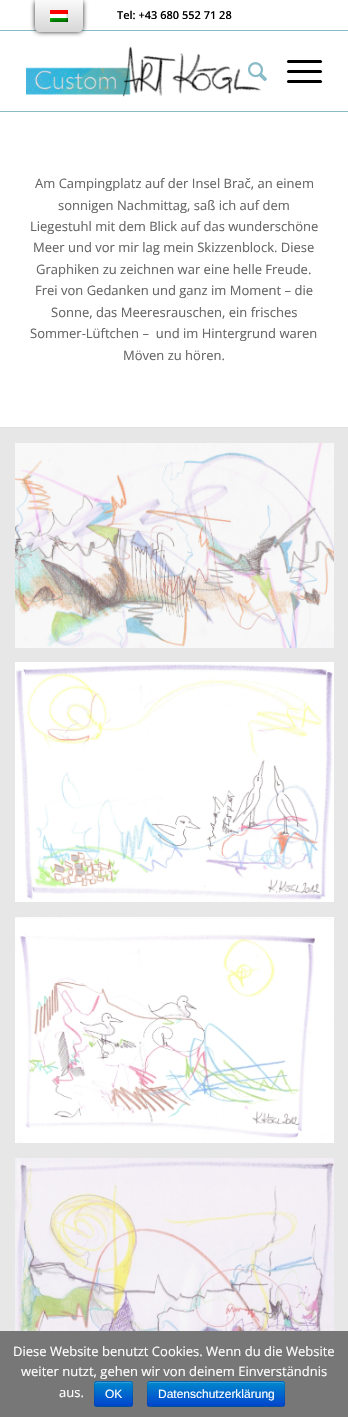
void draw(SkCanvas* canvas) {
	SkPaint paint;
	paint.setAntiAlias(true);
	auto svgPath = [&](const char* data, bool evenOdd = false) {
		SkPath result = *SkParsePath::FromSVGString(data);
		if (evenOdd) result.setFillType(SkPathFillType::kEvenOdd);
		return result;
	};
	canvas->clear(0xffffffff);
	paint.setColor(0xff88bbc8);
	canvas->drawRect(SkRect::MakeXYWH(0, 30, 348, 1), paint);
	paint.setColor(0xff212121);
	paint.setMaskFilter(SkMaskFilter::MakeBlur(kNormal_SkBlurStyle, 2.5));
	canvas->drawRoundRect(SkRect::MakeXYWH(35, 0, 48, 32), 5, 5, paint);
	paint.setMaskFilter(nullptr);
	{
		const SkColor colors[] = {0xffd6d6d6, 0xfffafafa};
		const float stops[] = {0, 1};
		const SkPoint ends[] = {{59, 32}, {59, 0}};
		paint.setShader(SkGradientShader::MakeLinear(ends, colors, stops, 2, SkTileMode::kClamp));
		paint.setAlpha(255);
	}
	canvas->drawPath(svgPath("M35 0H83V27C83 30 81 32 78 32H40C37 32 35 30 35 27Z"), paint);
	canvas->drawImageRect(SkImages::DeferredFromEncodedData(SkData::MakeFromFileName("img1.png")), SkRect::MakeXYWH(50, 10, 18, 12), SkSamplingOptions());
	SkFont f1(fontMgr->matchFamilyStyle("Open Sans", SkFontStyle(600, SkFontStyle::kNormal_Width, SkFontStyle::kUpright_Slant)), 11);
	f1.setSubpixel(true);
	paint.setShader(nullptr);
	paint.setColor(0xff000000);
	canvas->drawString("Tel: +43 680 552 71 28", 117, 19, f1, paint);
	paint.setColor(0xff88bbc8);
	canvas->drawRect(SkRect::MakeXYWH(0, 111, 348, 1), paint);
	canvas->drawImageRect(SkImages::DeferredFromEncodedData(SkData::MakeFromFileName("img2.png")), SkRect::MakeXYWH(26, 46, 235, 51), SkSamplingOptions());
	canvas->drawImageRect(SkImages::DeferredFromEncodedData(SkData::MakeFromFileName("img3.png")), SkRect::MakeXYWH(248, 62, 19, 20), SkSamplingOptions());
	paint.setColor(0xff000000);
	canvas->drawRoundRect(SkRect::MakeXYWH(287, 70, 35, 3), 1.5, 1.5, paint);
	canvas->drawRoundRect(SkRect::MakeXYWH(287, 60, 35, 3), 1.5, 1.5, paint);
	canvas->drawRoundRect(SkRect::MakeXYWH(287, 80, 35, 3), 1.5, 1.5, paint);
	SkFont f2(fontMgr->matchFamilyStyle("Open Sans", SkFontStyle::Normal()), 13);
	f2.setSubpixel(true);
	paint.setColor(0xff666666);
	canvas->drawString("Am Campingplatz auf der Insel Brač, an einem", 35, 188, f2, paint);
	canvas->drawString("sonnigen Nachmittag, saß ich auf dem", 58, 210, f2, paint);
	canvas->drawString("Liegestuhl mit dem Blick auf das wunderschöne", 30, 231, f2, paint);
	canvas->drawString("Meer und vor mir lag mein Skizzenblock. Diese", 33, 252, f2, paint);
	canvas->drawString("Graphiken zu zeichnen war eine helle Freude.", 36, 274, f2, paint);
	canvas->drawString("Frei von Gedanken und ganz im Moment – die", 35, 295, f2, paint);
	canvas->drawString("Sonne, das Meeresrauschen, ein frisches", 51, 317, f2, paint);
	canvas->drawString("Sommer-Lüftchen –  und im Hintergrund waren", 30, 338, f2, paint);
	canvas->drawString("Möven zu hören.", 123, 360, f2, paint);
	paint.setColor(0xffe1e1e1);
	canvas->drawRect(SkRect::MakeXYWH(0, 427, 348, 1), paint);
	paint.setColor(0xffe7e7e7);
	canvas->drawRect(SkRect::MakeXYWH(0, 428, 348, 903), paint);
	canvas->drawImageRect(SkImages::DeferredFromEncodedData(SkData::MakeFromFileName("img4.png")), SkRect::MakeXYWH(15, 443, 319, 205), SkSamplingOptions());
	paint.setColor(0xffffffff);
	canvas->drawRect(SkRect::MakeXYWH(15, 662, 319, 240), paint);
	canvas->drawImageRect(SkImages::DeferredFromEncodedData(SkData::MakeFromFileName("img5.png")), SkRect::MakeXYWH(16, 664, 317, 238), SkSamplingOptions());
	canvas->drawRect(SkRect::MakeXYWH(15, 917, 319, 226), paint);
	canvas->drawImageRect(SkImages::DeferredFromEncodedData(SkData::MakeFromFileName("img6.png")), SkRect::MakeXYWH(15, 917, 316, 226), SkSamplingOptions());
	canvas->drawImageRect(SkImages::DeferredFromEncodedData(SkData::MakeFromFileName("img7.png")), SkRect::MakeXYWH(15, 1158, 319, 173), SkSamplingOptions());
	paint.setColor(0xff777777);
	canvas->drawRect(SkRect::MakeXYWH(0, 1331, 348, 86), paint);
	paint.setColor(0xffffffff);
	canvas->drawString("Diese Website benutzt Cookies. Wenn du die Website", 13, 1356, f2, paint);
	canvas->drawString("weiter nutzt, gehen wir von deinem Einverständnis", 21, 1376, f2, paint);
	canvas->drawString("aus.", 59, 1397, f2, paint);
	paint.setColor(0xff006dcc);
	canvas->drawRoundRect(SkRect::MakeXYWH(94, 1381, 39, 26), 3, 3, paint);
	canvas->save();
	canvas->clipPath(svgPath("M97 1381H130C131.5 1381 133 1382.5 133 1384V1404C133 1405.5 131.5 1407 130 1407H97C95.5 1407 94 1405.5 94 1404V1384C94 1382.5 95.5 1381 97 1381Z"), true);
	{
		const SkColor colors[] = {0xff0088cc, 0xff0044cc};
		const float stops[] = {0, 1};
		const SkPoint ends[] = {{114, 1382}, {114, 1406}};
		paint.setShader(SkGradientShader::MakeLinear(ends, colors, stops, 2, SkTileMode::kClamp));
		paint.setAlpha(255);
	}
	canvas->drawRect(SkRect::MakeXYWH(94, 1382, 39, 24), paint);
	canvas->restore();
	paint.setShader(nullptr);
	paint.setColor(0x33ffffff);
	canvas->drawPath(svgPath("M97 1383H130C131 1383 132 1384 132 1385C132 1380.5 128.5 1382 124.5 1382H102.5C98.5 1382 95 1380.5 95 1385C95 1384 96 1383 97 1383Z"), paint);
	paint.setStroke(true);
	paint.setStrokeWidth(1);
	paint.setColor(0x40000000);
	canvas->drawPath(svgPath("M132 1406C131.5 1406 130.5 1406.5 130 1406.5H97C96.5 1406.5 95.5 1406 95 1406"), paint);
	paint.setColor(0x1a000000);
	canvas->drawPath(svgPath("M95 1406C95 1405.5 94.5 1404.5 94.5 1404V1384C94.5 1383.5 95 1382.5 95 1382C95.5 1382 96.5 1381.5 97 1381.5H130C130.5 1381.5 131.5 1382 132 1382C132 1382.5 132.5 1383.5 132.5 1384V1404C132.5 1404.5 132 1405.5 132 1406"), paint);
	SkFont f3(fontMgr->matchFamilyStyle("Liberation Sans", SkFontStyle::Normal()), 12);
	f3.setSubpixel(true);
	paint.setStroke(false);
	paint.setColor(0xffffffff);
	canvas->drawString("OK", 105, 1398, f3, paint);
	paint.setColor(0xff006dcc);
	canvas->drawRoundRect(SkRect::MakeXYWH(147, 1381, 138, 26), 3, 3, paint);
	canvas->save();
	canvas->clipPath(svgPath("M150 1381H282C283.5 1381 285 1382.5 285 1384V1404C285 1405.5 283.5 1407 282 1407H150C148.5 1407 147 1405.5 147 1404V1384C147 1382.5 148.5 1381 150 1381Z"), true);
	{
		const SkColor colors[] = {0xff0088cc, 0xff0044cc};
		const float stops[] = {0, 1};
		const SkPoint ends[] = {{216, 1382}, {216, 1406}};
		paint.setShader(SkGradientShader::MakeLinear(ends, colors, stops, 2, SkTileMode::kClamp));
		paint.setAlpha(255);
	}
	canvas->drawRect(SkRect::MakeXYWH(147, 1382, 138, 24), paint);
	canvas->restore();
	paint.setShader(nullptr);
	paint.setColor(0x33ffffff);
	canvas->drawPath(svgPath("M150 1383H282C283 1383 284 1384 284 1385C284 1384 284 1382 282 1382H150C148 1382 148 1384 148 1385C148 1384 149 1383 150 1383Z"), paint);
	paint.setStroke(true);
	paint.setColor(0x40000000);
	canvas->drawPath(svgPath("M284 1406L282 1406.5H172H150L148 1406"), paint);
	paint.setColor(0x1a000000);
	canvas->drawPath(svgPath("M148 1406C146.5 1404 147.5 1396.5 147.5 1394V1387.5C147.5 1385.5 147 1381.5 150 1381.5H282C285 1381.5 284.5 1385.5 284.5 1387.5V1394C284.5 1396.5 285.5 1404 284 1406"), paint);
	paint.setStroke(false);
	paint.setColor(0xffffffff);
	canvas->drawString("Datenschutzerklärung", 158, 1398, f3, paint);
}
